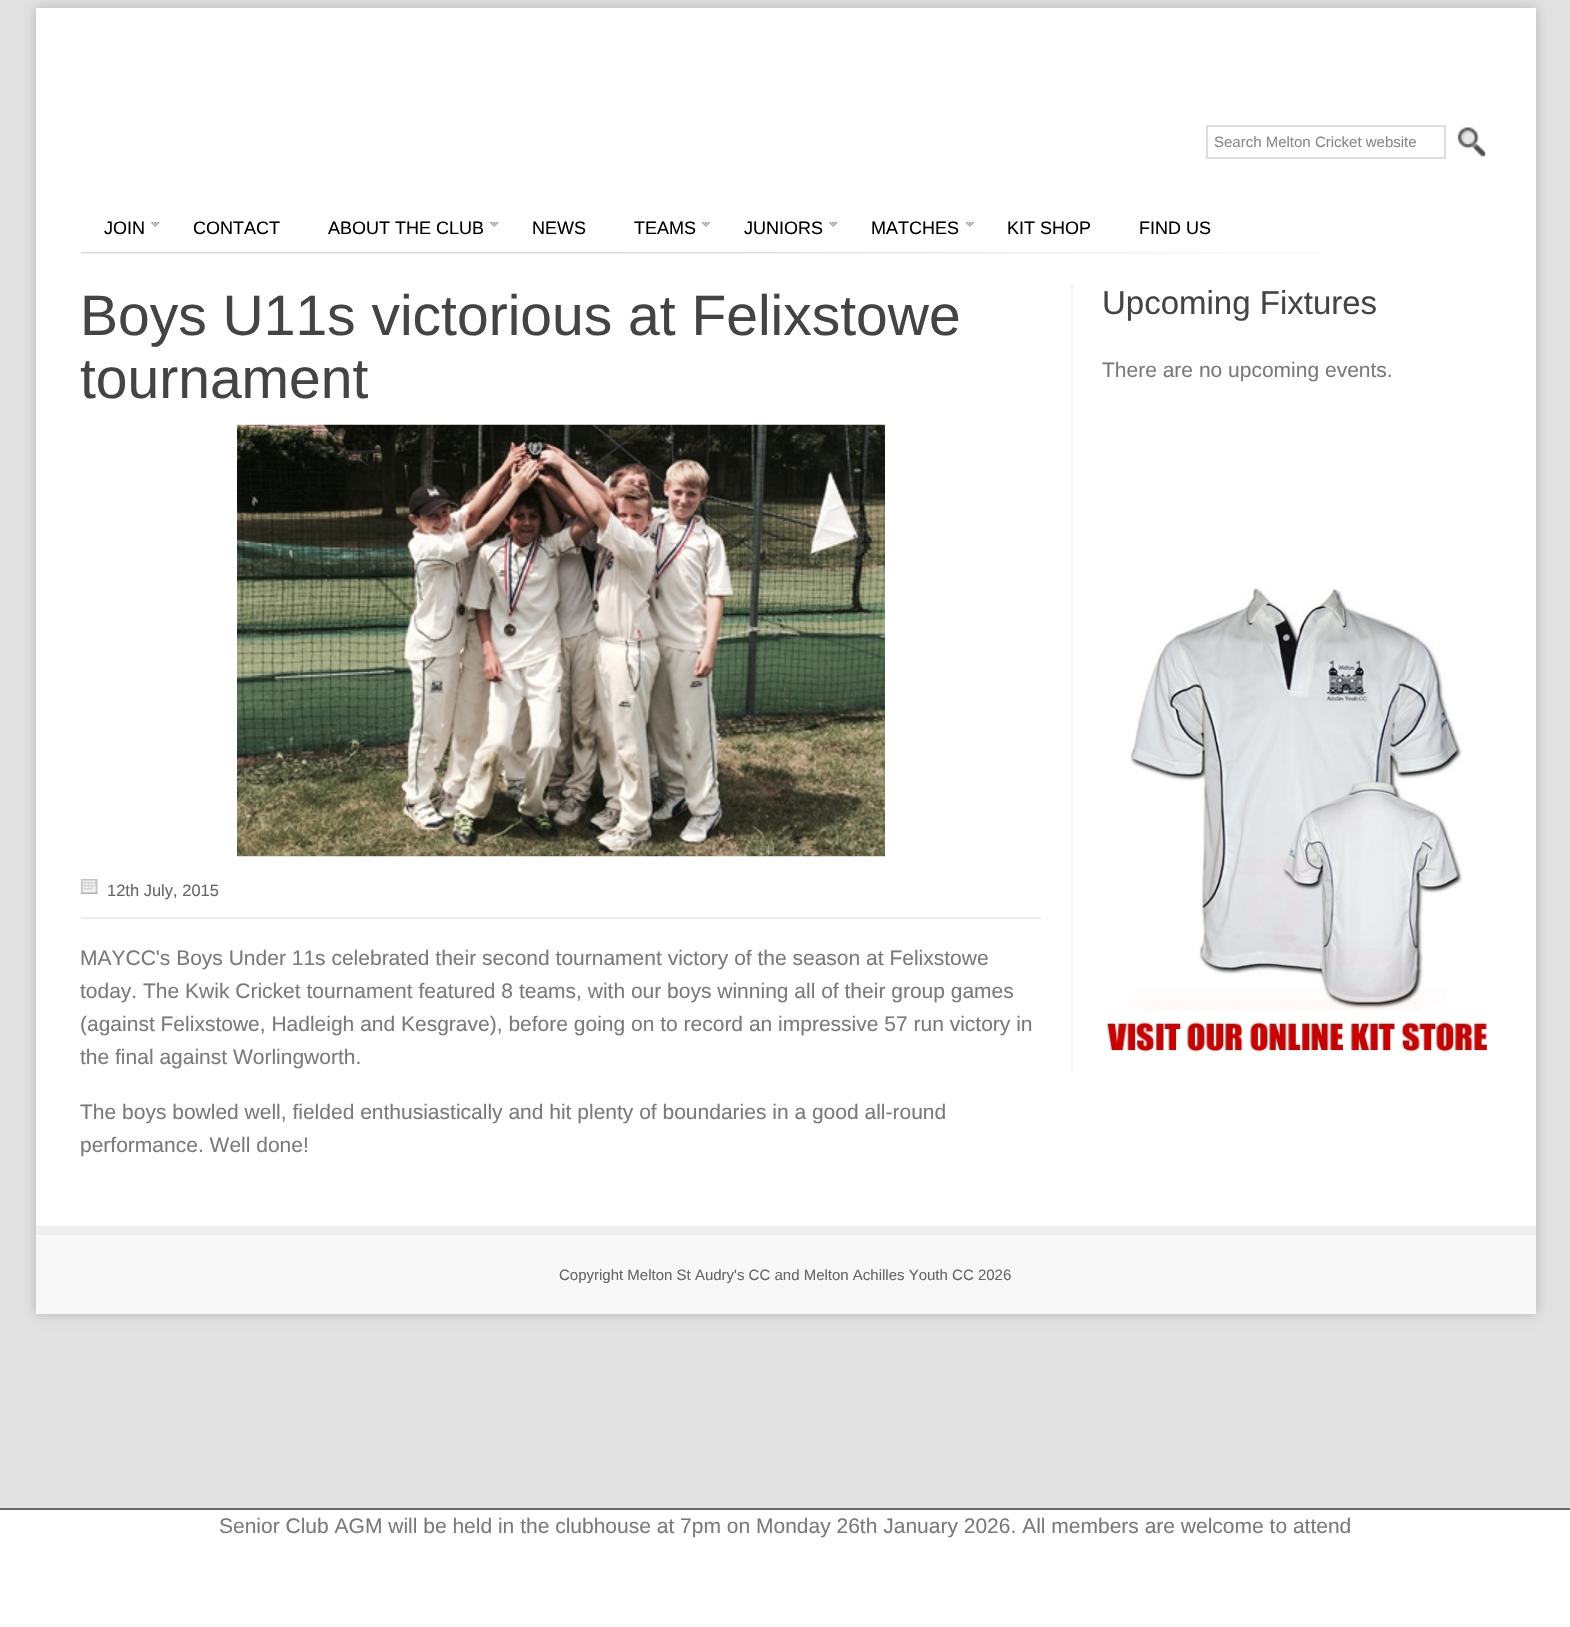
void draw(SkCanvas* canvas) {
	SkPaint paint;
	paint.setAntiAlias(true);
	canvas->clear(0xffe2e2e2);
	paint.setColor(0x33000000);
	paint.setMaskFilter(SkMaskFilter::MakeBlur(kNormal_SkBlurStyle, 6));
	canvas->drawRect(SkRect::MakeXYWH(36, 8, 1500, 1306), paint);
	paint.setMaskFilter(nullptr);
	paint.setColor(0xffffffff);
	canvas->drawRect(SkRect::MakeXYWH(36, 8, 1500, 1218), paint);
	paint.setStroke(true);
	paint.setStrokeWidth(2);
	paint.setColor(0xffdddddd);
	canvas->drawRect(SkRect::MakeXYWH(1207, 126, 238, 32), paint);
	SkFont f1(fontMgr->matchFamilyStyle("Liberation Sans", SkFontStyle::Normal()), 15);
	f1.setSubpixel(true);
	paint.setStroke(false);
	paint.setColor(0xff888888);
	canvas->drawString("Search Melton Cricket website", 1214, 147, f1, paint);
	canvas->drawImageRect(SkImages::DeferredFromEncodedData(SkData::MakeFromFileName("img1.png")), SkRect::MakeXYWH(1457, 127, 29, 30), SkSamplingOptions());
	canvas->drawImageRect(SkImages::DeferredFromEncodedData(SkData::MakeFromFileName("img2.png")), SkRect::MakeXYWH(81, 252, 1240, 2), SkSamplingOptions());
	SkFont f2(fontMgr->matchFamilyStyle("Liberation Sans", SkFontStyle::Normal()), 18);
	f2.setSubpixel(true);
	paint.setColor(0xff000000);
	canvas->drawString("JOIN", 104, 234, f2, paint);
	canvas->drawImageRect(SkImages::DeferredFromEncodedData(SkData::MakeFromFileName("img3.png")), SkRect::MakeXYWH(151, 222, 9, 5), SkSamplingOptions());
	canvas->drawString("CONTACT", 193, 234, f2, paint);
	canvas->drawString("ABOUT THE CLUB", 328, 234, f2, paint);
	canvas->drawImageRect(SkImages::DeferredFromEncodedData(SkData::MakeFromFileName("img4.png")), SkRect::MakeXYWH(490, 222, 9, 5), SkSamplingOptions());
	canvas->drawString("NEWS", 532, 234, f2, paint);
	canvas->drawString("TEAMS", 634, 234, f2, paint);
	canvas->drawImageRect(SkImages::DeferredFromEncodedData(SkData::MakeFromFileName("img5.png")), SkRect::MakeXYWH(701, 222, 9, 5), SkSamplingOptions());
	canvas->drawString("JUNIORS", 744, 234, f2, paint);
	canvas->drawImageRect(SkImages::DeferredFromEncodedData(SkData::MakeFromFileName("img3.png")), SkRect::MakeXYWH(829, 222, 9, 5), SkSamplingOptions());
	canvas->drawString("MATCHES", 871, 234, f2, paint);
	canvas->drawImageRect(SkImages::DeferredFromEncodedData(SkData::MakeFromFileName("img6.png")), SkRect::MakeXYWH(965, 222, 9, 5), SkSamplingOptions());
	canvas->drawString("KIT SHOP", 1007, 234, f2, paint);
	canvas->drawString("FIND US", 1139, 234, f2, paint);
	SkFont f3(fontMgr->matchFamilyStyle("Liberation Sans", SkFontStyle::Normal()), 57);
	f3.setSubpixel(true);
	paint.setColor(0xff444444);
	canvas->drawString("Boys U11s victorious at Felixstowe", 80, 335, f3, paint);
	canvas->drawString("tournament", 80, 398, f3, paint);
	canvas->drawImageRect(SkImages::DeferredFromEncodedData(SkData::MakeFromFileName("img7.png")), SkRect::MakeXYWH(237, 424, 648, 433), SkSamplingOptions());
	paint.setColor(0xffeeeeee);
	canvas->drawRect(SkRect::MakeXYWH(81, 917, 960, 2), paint);
	canvas->drawImageRect(SkImages::DeferredFromEncodedData(SkData::MakeFromFileName("img8.png")), SkRect::MakeXYWH(81, 879, 17, 15), SkSamplingOptions());
	SkFont f4(fontMgr->matchFamilyStyle("Liberation Sans", SkFontStyle::Normal()), 16.5);
	f4.setSubpixel(true);
	paint.setColor(0xff666666);
	canvas->drawString("12th July, 2015", 107, 896, f4, paint);
	SkFont f5(fontMgr->matchFamilyStyle("Liberation Sans", SkFontStyle::Normal()), 21);
	f5.setSubpixel(true);
	paint.setColor(0xff7a7a7a);
	canvas->drawString("MAYCC's Boys Under 11s celebrated their second tournament victory of the season at Felixstowe", 80, 965, f5, paint);
	canvas->drawString("today. The Kwik Cricket tournament featured 8 teams, with our boys winning all of their group games", 80, 998, f5, paint);
	canvas->drawString("(against Felixstowe, Hadleigh and Kesgrave), before going on to record an impressive 57 run victory in", 80, 1031, f5, paint);
	canvas->drawString("the final against Worlingworth.", 80, 1064, f5, paint);
	canvas->drawString("The boys bowled well, fielded enthusiastically and hit plenty of boundaries in a good all-round", 80, 1119, f5, paint);
	canvas->drawString("performance. Well done!", 80, 1152, f5, paint);
	paint.setColor(0xfff4f4f4);
	canvas->drawRect(SkRect::MakeXYWH(1071, 284, 2, 789), paint);
	SkFont f6(fontMgr->matchFamilyStyle("Liberation Sans", SkFontStyle::Normal()), 33);
	f6.setSubpixel(true);
	paint.setColor(0xff444444);
	canvas->drawString("Upcoming Fixtures", 1102, 314, f6, paint);
	paint.setColor(0xff7a7a7a);
	canvas->drawString("There are no upcoming events.", 1102, 377, f5, paint);
	canvas->drawImageRect(SkImages::DeferredFromEncodedData(SkData::MakeFromFileName("img9.png")), SkRect::MakeXYWH(1106, 585, 382, 468), SkSamplingOptions());
	paint.setColor(0xfff8f8f8);
	canvas->drawRect(SkRect::MakeXYWH(36, 1235, 1500, 79), paint);
	paint.setColor(0xffefefef);
	canvas->drawRect(SkRect::MakeXYWH(36, 1226, 1500, 9), paint);
	paint.setColor(0xff666666);
	canvas->drawString("Copyright Melton St Audry's CC and Melton Achilles Youth CC 2026", 559, 1280, f1, paint);
	paint.setColor(0xffffffff);
	canvas->drawRect(SkRect::MakeXYWH(0, 1510, 1570, 117), paint);
	paint.setColor(0xff666666);
	canvas->drawRect(SkRect::MakeXYWH(0, 1508, 1570, 2), paint);
	paint.setColor(0xff7a7a7a);
	canvas->drawString("Senior Club AGM will be held in the clubhouse at 7pm on Monday 26th January 2026. All members are welcome to attend", 219, 1533, f5, paint);
}
